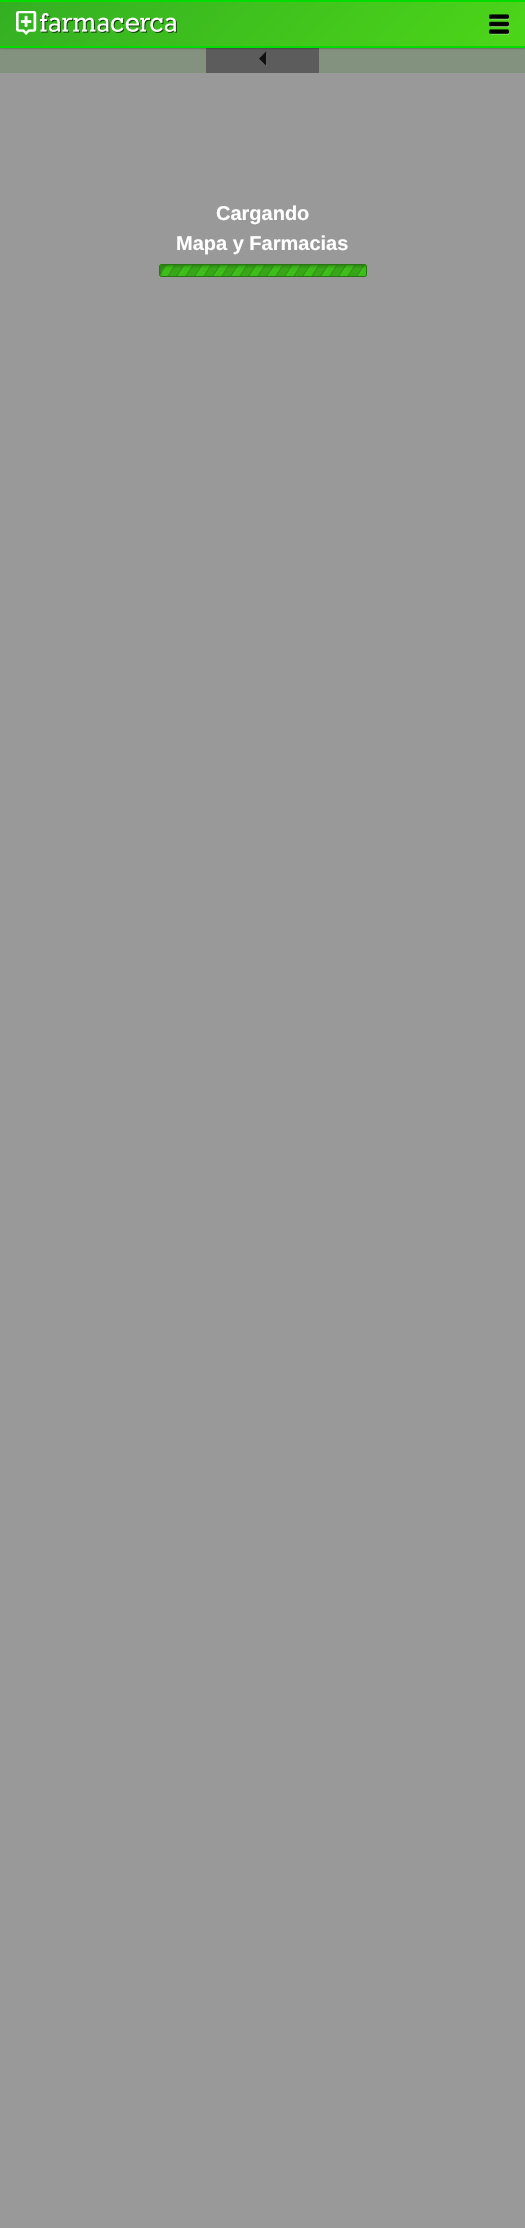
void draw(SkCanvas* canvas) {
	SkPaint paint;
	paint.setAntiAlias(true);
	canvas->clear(0xff999999);
	paint.setColor(0xff83927e);
	canvas->drawRect(SkRect::MakeXYWH(0, 48, 525, 25), paint);
	paint.setColor(0xff5c5c5c);
	canvas->drawRect(SkRect::MakeXYWH(206, 48, 113, 25), paint);
	canvas->drawImageRect(SkImages::DeferredFromEncodedData(SkData::MakeFromFileName("img3.png")), SkRect::MakeXYWH(259, 51, 8, 16), SkSamplingOptions());
	paint.setColor(0x85000000);
	paint.setMaskFilter(SkMaskFilter::MakeBlur(kNormal_SkBlurStyle, 1));
	canvas->drawRect(SkRect::MakeXYWH(0, 0, 525, 48), paint);
	paint.setMaskFilter(nullptr);
	{
		const SkColor colors[] = {0xff34af23, 0xff4cd618};
		const float stops[] = {0, 1};
		const SkPoint ends[] = {{120, -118}, {405, 166}};
		paint.setShader(SkGradientShader::MakeLinear(ends, colors, stops, 2, SkTileMode::kClamp));
		paint.setAlpha(255);
	}
	canvas->drawRect(SkRect::MakeXYWH(0, 2, 525, 44), paint);
	paint.setShader(nullptr);
	paint.setColor(0xff00dc00);
	canvas->drawRect(SkRect::MakeXYWH(0, 0, 525, 2), paint);
	canvas->drawRect(SkRect::MakeXYWH(0, 46, 525, 2), paint);
	canvas->drawImageRect(SkImages::DeferredFromEncodedData(SkData::MakeFromFileName("img1.png")), SkRect::MakeXYWH(16, 11, 161, 24), SkSamplingOptions());
	canvas->drawImageRect(SkImages::DeferredFromEncodedData(SkData::MakeFromFileName("img2.png")), SkRect::MakeXYWH(489, 14, 20, 21), SkSamplingOptions());
	SkFont f1(fontMgr->matchFamilyStyle("Liberation Sans", SkFontStyle::Bold()), 20);
	f1.setSubpixel(true);
	paint.setColor(0xffffffff);
	canvas->drawString("Cargando", 216, 220, f1, paint);
	canvas->drawString("Mapa y Farmacias", 176, 250, f1, paint);
	canvas->drawImageRect(SkImages::DeferredFromEncodedData(SkData::MakeFromFileName("img4.png")), SkRect::MakeXYWH(159, 264, 208, 13), SkSamplingOptions());
}
